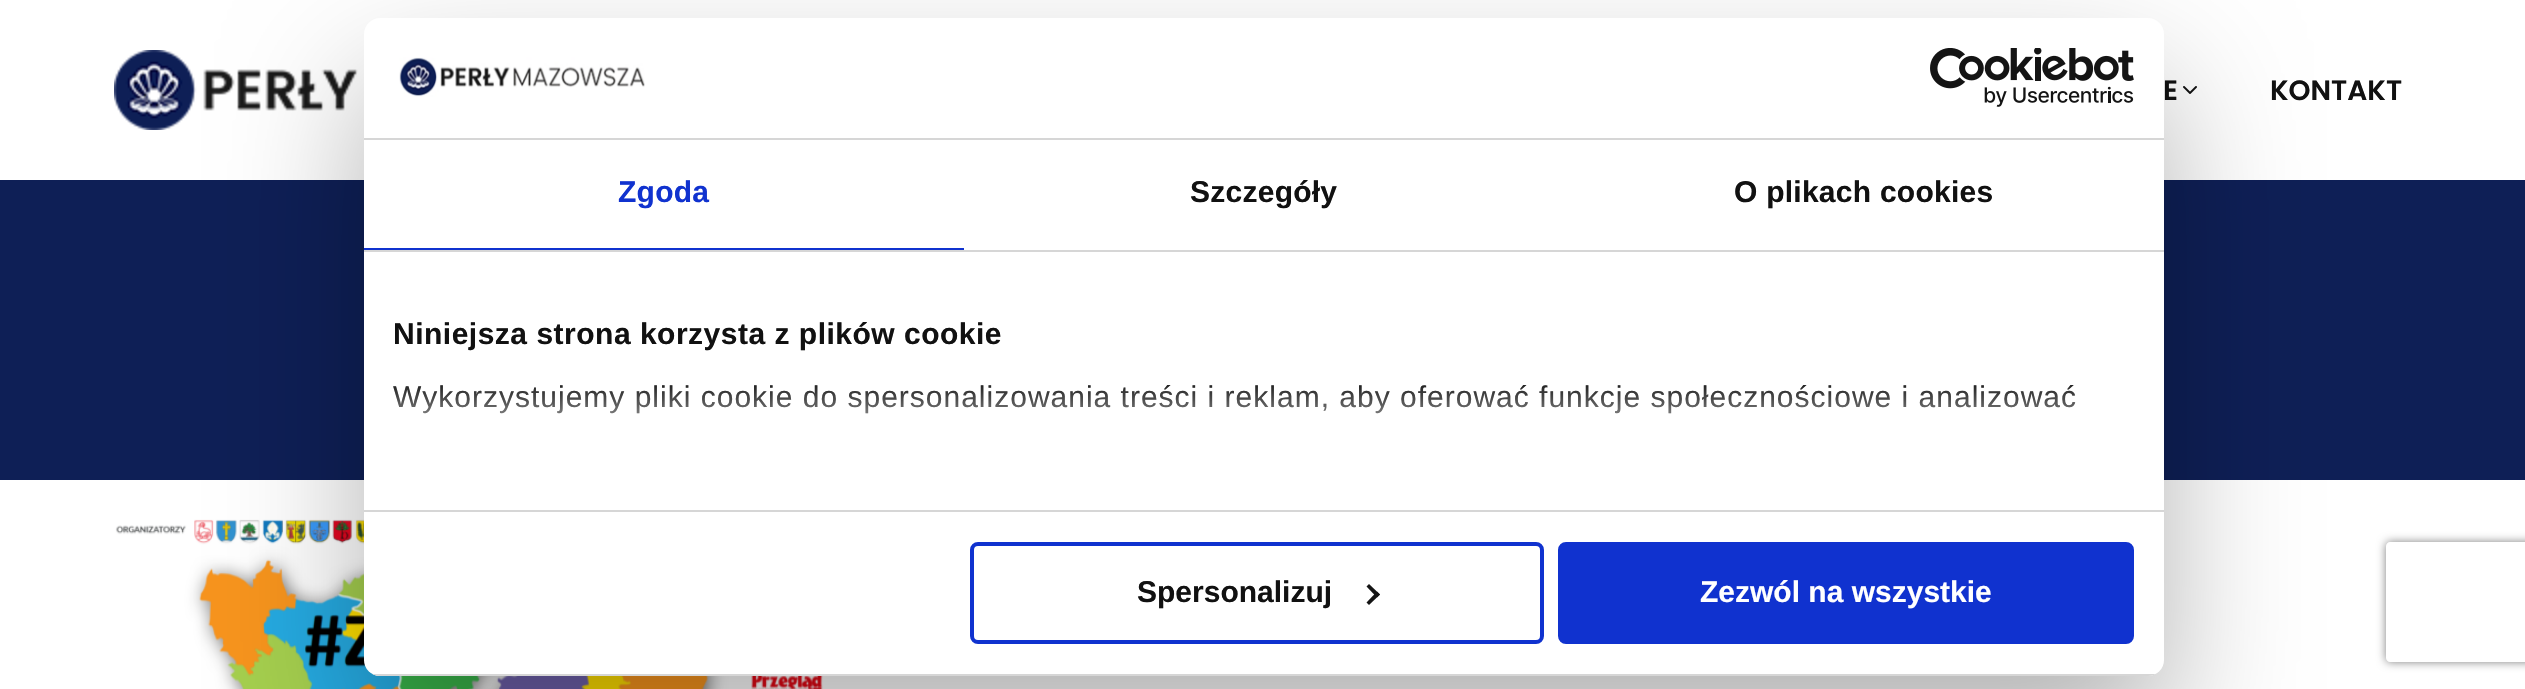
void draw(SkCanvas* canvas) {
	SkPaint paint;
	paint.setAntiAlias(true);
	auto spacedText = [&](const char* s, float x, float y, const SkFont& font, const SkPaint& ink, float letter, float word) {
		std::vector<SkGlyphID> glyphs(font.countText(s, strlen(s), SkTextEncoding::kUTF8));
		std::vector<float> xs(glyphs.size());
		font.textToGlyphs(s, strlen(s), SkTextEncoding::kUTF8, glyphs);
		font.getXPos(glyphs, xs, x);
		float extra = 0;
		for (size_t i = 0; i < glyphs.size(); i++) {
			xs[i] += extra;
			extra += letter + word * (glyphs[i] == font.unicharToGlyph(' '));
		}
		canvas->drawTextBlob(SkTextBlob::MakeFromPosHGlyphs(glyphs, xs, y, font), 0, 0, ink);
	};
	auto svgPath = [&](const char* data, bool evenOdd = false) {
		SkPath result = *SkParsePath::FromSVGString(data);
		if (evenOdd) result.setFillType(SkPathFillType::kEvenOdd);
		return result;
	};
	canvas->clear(0xffffffff);
	canvas->drawImageRect(SkImages::DeferredFromEncodedData(SkData::MakeFromFileName("img1.png")), SkRect::MakeXYWH(114, 50, 244, 80), SkSamplingOptions());
	SkFont f1(fontMgr->matchFamilyStyle("Poppins", SkFontStyle(600, SkFontStyle::kNormal_Width, SkFontStyle::kUpright_Slant)), 28);
	f1.setSubpixel(true);
	paint.setColor(0xff111111);
	canvas->drawString("E", 2163, 100, f1, paint);
	canvas->drawImageRect(SkImages::DeferredFromEncodedData(SkData::MakeFromFileName("img2.png")), SkRect::MakeXYWH(2183, 86, 14, 8), SkSamplingOptions());
	canvas->drawString("KONTAKT", 2270, 100, f1, paint);
	paint.setColor(0xff0e1f56);
	canvas->drawRect(SkRect::MakeXYWH(0, 180, 2525, 300), paint);
	canvas->drawImageRect(SkImages::DeferredFromEncodedData(SkData::MakeFromFileName("img3.png")), SkRect::MakeXYWH(100, 500, 748, 189), SkSamplingOptions());
	paint.setColor(0x4d000000);
	paint.setMaskFilter(SkMaskFilter::MakeBlur(kNormal_SkBlurStyle, 68));
	canvas->drawRoundRect(SkRect::MakeXYWH(364, 82, 1800, 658), 16, 16, paint);
	paint.setMaskFilter(nullptr);
	paint.setColor(0xffffffff);
	canvas->drawRoundRect(SkRect::MakeXYWH(364, 18, 1800, 658), 16, 16, paint);
	paint.setColor(0xffd6d6d6);
	canvas->drawRect(SkRect::MakeXYWH(364, 138, 1800, 2), paint);
	canvas->drawImageRect(SkImages::DeferredFromEncodedData(SkData::MakeFromFileName("img4.png")), SkRect::MakeXYWH(399, 57, 246, 40), SkSamplingOptions());
	canvas->drawImageRect(SkImages::DeferredFromEncodedData(SkData::MakeFromFileName("img5.png")), SkRect::MakeXYWH(1930, 48, 204, 59), SkSamplingOptions());
	canvas->drawRect(SkRect::MakeXYWH(364, 250, 1800, 2), paint);
	paint.setColor(0xff1032cf);
	canvas->drawRect(SkRect::MakeXYWH(364, 248, 600, 2), paint);
	SkFont f2(fontMgr->matchFamilyStyle("Liberation Sans", SkFontStyle::Bold()), 30);
	f2.setSubpixel(true);
	spacedText("Zgoda", 618, 202, f2, paint, 0.25, 0);
	paint.setColor(0xff111111);
	spacedText("Szczegóły", 1190, 202, f2, paint, 0.25, 0);
	spacedText("O plikach cookies", 1734, 202, f2, paint, 0.25, 0);
	paint.setColor(0xffd6d6d6);
	canvas->drawRect(SkRect::MakeXYWH(364, 510, 1800, 2), paint);
	paint.setColor(0xff111111);
	spacedText("Niniejsza strona korzysta z plików cookie", 393, 344, f2, paint, 0.5, 0);
	SkFont f3(fontMgr->matchFamilyStyle("Liberation Sans", SkFontStyle::Normal()), 30);
	f3.setSubpixel(true);
	spacedText("Wykorzystujemy pliki cookie do spersonalizowania treści i reklam, aby oferować funkcje społecznościowe i analizować", 393, 407, f3, paint, 1, 0);
	{
		const SkColor colors[] = {0xffffffff, 0xccffffff, 0x00ffffff};
		const float stops[] = {0, 0.5, 1};
		const SkPoint ends[] = {{1251, 509}, {1251, 379}};
		paint.setShader(SkGradientShader::MakeLinear(ends, colors, stops, 3, SkTileMode::kClamp));
		paint.setAlpha(255);
	}
	canvas->drawRect(SkRect::MakeXYWH(393, 385, 1683, 29), paint);
	canvas->save();
	canvas->clipPath(svgPath("M380 18H2148C2157 18 2164 25 2164 34V660C2164 669 2157 676 2148 676H380C371 676 364 669 364 660V34C364 25 371 18 380 18Z"), true);
	paint.setShader(nullptr);
	paint.setColor(0xffd6d6d6);
	canvas->drawRect(SkRect::MakeXYWH(364, 674, 1800, 2), paint);
	canvas->restore();
	paint.setStroke(true);
	paint.setStrokeWidth(4);
	paint.setColor(0xff1032cf);
	canvas->drawRoundRect(SkRect::MakeXYWH(972, 544, 570, 98), 6, 6, paint);
	paint.setStroke(false);
	paint.setColor(0xff111111);
	canvas->drawString("Spersonalizuj", 1137, 602, f2, paint);
	paint.setColor(0xff141414);
	canvas->drawPath(svgPath("M1369 584L1380 594.5L1377 597.5L1366.5 586.5Z"), paint);
	canvas->drawPath(svgPath("M1377 591.5L1380 594.5L1369 605L1366.5 602.5Z"), paint);
	paint.setColor(0xff1032cf);
	canvas->drawRoundRect(SkRect::MakeXYWH(1560, 544, 572, 98), 6, 6, paint);
	paint.setStroke(true);
	canvas->drawRoundRect(SkRect::MakeXYWH(1560, 544, 572, 98), 6, 6, paint);
	paint.setStroke(false);
	paint.setColor(0xffffffff);
	canvas->drawString("Zezwól na wszystkie", 1700, 602, f2, paint);
	canvas->save();
	canvas->clipPath(svgPath("M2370 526H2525V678H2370ZM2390 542H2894C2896 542 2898 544 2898 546V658C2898 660 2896 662 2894 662H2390C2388 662 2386 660 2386 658V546C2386 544 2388 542 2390 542Z", true), true);
	paint.setColor(0xff808080);
	paint.setMaskFilter(SkMaskFilter::MakeBlur(kNormal_SkBlurStyle, 5));
	canvas->drawRoundRect(SkRect::MakeXYWH(2386, 542, 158, 120), 4, 4, paint);
	paint.setMaskFilter(nullptr);
	canvas->restore();
}
